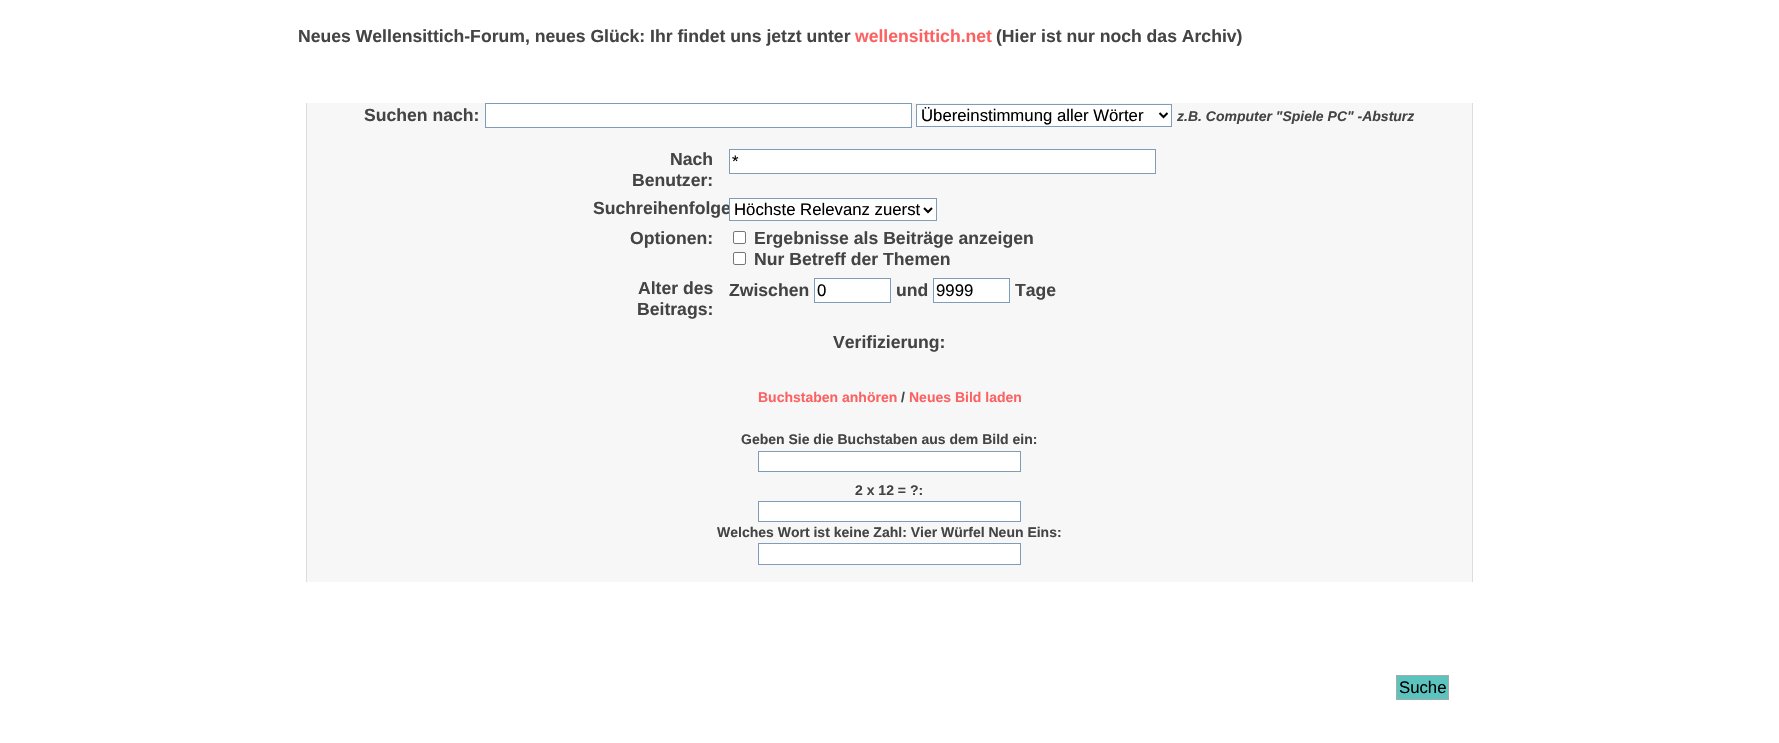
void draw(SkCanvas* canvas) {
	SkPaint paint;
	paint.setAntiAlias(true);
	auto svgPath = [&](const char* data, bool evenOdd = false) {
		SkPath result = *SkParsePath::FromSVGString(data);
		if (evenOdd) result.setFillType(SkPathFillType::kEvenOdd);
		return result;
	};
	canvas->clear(0xffffffff);
	SkFont f1(fontMgr->matchFamilyStyle("Liberation Sans", SkFontStyle::Bold()), 17.6);
	f1.setSubpixel(true);
	paint.setColor(0xff444444);
	canvas->drawString("Neues Wellensittich-Forum, neues Glück: Ihr findet uns jetzt unter", 298, 42, f1, paint);
	canvas->drawString("(Hier ist nur noch das Archiv)", 996, 42, f1, paint);
	paint.setColor(0xfff7f7f7);
	canvas->drawRect(SkRect::MakeXYWH(307, 103, 1165, 479), paint);
	paint.setColor(0xffdcdcdc);
	canvas->drawRect(SkRect::MakeXYWH(1472, 103, 1, 479), paint);
	canvas->drawRect(SkRect::MakeXYWH(306, 103, 1, 479), paint);
	paint.setColor(0xff444444);
	canvas->drawString("Suchen nach:", 364, 121, f1, paint);
	paint.setColor(0xffffffff);
	canvas->drawRect(SkRect::MakeXYWH(485.5, 103.5, 426, 24), paint);
	paint.setStroke(true);
	paint.setStrokeWidth(1);
	paint.setColor(0xff7f9db9);
	canvas->drawRect(SkRect::MakeXYWH(485.5, 103.5, 426, 24), paint);
	paint.setStroke(false);
	paint.setColor(0xffffffff);
	canvas->drawRect(SkRect::MakeXYWH(916.5, 104.5, 255, 22), paint);
	paint.setStroke(true);
	paint.setColor(0xff7f9db9);
	canvas->drawRect(SkRect::MakeXYWH(916.5, 104.5, 255, 22), paint);
	paint.setStrokeWidth(2);
	paint.setColor(0xff000000);
	canvas->drawPath(svgPath("M1159.5 113L1163.5 117L1167.5 113"), paint);
	SkFont f2(fontMgr->matchFamilyStyle("Liberation Sans", SkFontStyle::Normal()), 16.75);
	f2.setSubpixel(true);
	paint.setStroke(false);
	canvas->drawString("Übereinstimmung aller Wörter", 921, 121, f2, paint);
	SkFont f3(fontMgr->matchFamilyStyle("Liberation Sans", SkFontStyle::BoldItalic()), 14);
	f3.setSubpixel(true);
	paint.setColor(0xff444444);
	canvas->drawString("z.B. Computer \"Spiele PC\" -Absturz", 1177, 121, f3, paint);
	canvas->drawString("Nach", 670, 165, f1, paint);
	canvas->drawString("Benutzer:", 632, 186, f1, paint);
	paint.setColor(0xffffffff);
	canvas->drawRect(SkRect::MakeXYWH(729.5, 149.5, 426, 24), paint);
	paint.setStroke(true);
	paint.setStrokeWidth(1);
	paint.setColor(0xff7f9db9);
	canvas->drawRect(SkRect::MakeXYWH(729.5, 149.5, 426, 24), paint);
	paint.setStroke(false);
	paint.setColor(0xff000000);
	canvas->drawString("*", 732, 167, f2, paint);
	paint.setColor(0xff444444);
	canvas->drawString("Suchreihenfolge", 593, 214, f1, paint);
	paint.setColor(0xffffffff);
	canvas->drawRect(SkRect::MakeXYWH(729.5, 198.5, 207, 22), paint);
	paint.setStroke(true);
	paint.setColor(0xff7f9db9);
	canvas->drawRect(SkRect::MakeXYWH(729.5, 198.5, 207, 22), paint);
	paint.setStrokeWidth(2);
	paint.setColor(0xff000000);
	canvas->drawPath(svgPath("M924 208L928 212L932 208"), paint);
	paint.setStroke(false);
	canvas->drawString("Höchste Relevanz zuerst", 734, 215, f2, paint);
	paint.setColor(0xff444444);
	canvas->drawString("Optionen:", 630, 244, f1, paint);
	paint.setColor(0xffffffff);
	canvas->drawRoundRect(SkRect::MakeXYWH(733.5, 231.5, 12, 12), 1.5, 1.5, paint);
	paint.setStroke(true);
	paint.setStrokeWidth(1);
	paint.setColor(0xff767676);
	canvas->drawRoundRect(SkRect::MakeXYWH(733.5, 231.5, 12, 12), 1.5, 1.5, paint);
	paint.setStroke(false);
	paint.setColor(0xff444444);
	canvas->drawString("Ergebnisse als Beiträge anzeigen", 754, 244, f1, paint);
	paint.setColor(0xffffffff);
	canvas->drawRoundRect(SkRect::MakeXYWH(733.5, 252.5, 12, 12), 1.5, 1.5, paint);
	paint.setStroke(true);
	paint.setColor(0xff767676);
	canvas->drawRoundRect(SkRect::MakeXYWH(733.5, 252.5, 12, 12), 1.5, 1.5, paint);
	paint.setStroke(false);
	paint.setColor(0xff444444);
	canvas->drawString("Nur Betreff der Themen", 754, 265, f1, paint);
	canvas->drawString("Alter des", 638, 294, f1, paint);
	canvas->drawString("Beitrags:", 637, 315, f1, paint);
	canvas->drawString("Zwischen", 729, 296, f1, paint);
	paint.setColor(0xffffffff);
	canvas->drawRect(SkRect::MakeXYWH(814.5, 278.5, 76, 24), paint);
	paint.setStroke(true);
	paint.setColor(0xff7f9db9);
	canvas->drawRect(SkRect::MakeXYWH(814.5, 278.5, 76, 24), paint);
	paint.setStroke(false);
	paint.setColor(0xff000000);
	canvas->drawString("0", 817, 296, f2, paint);
	paint.setColor(0xff444444);
	canvas->drawString("und", 896, 296, f1, paint);
	paint.setColor(0xffffffff);
	canvas->drawRect(SkRect::MakeXYWH(933.5, 278.5, 76, 24), paint);
	paint.setStroke(true);
	paint.setColor(0xff7f9db9);
	canvas->drawRect(SkRect::MakeXYWH(933.5, 278.5, 76, 24), paint);
	paint.setStroke(false);
	paint.setColor(0xff000000);
	canvas->drawString("9999", 936, 296, f2, paint);
	paint.setColor(0xff444444);
	canvas->drawString("Tage", 1015, 296, f1, paint);
	canvas->drawString("Verifizierung:", 833, 348, f1, paint);
	SkFont f4(fontMgr->matchFamilyStyle("Liberation Sans", SkFontStyle::Bold()), 14);
	f4.setSubpixel(true);
	paint.setColor(0xfffc6262);
	canvas->drawString("Buchstaben anhören", 758, 402, f4, paint);
	paint.setColor(0xff444444);
	canvas->drawString("/", 901, 402, f4, paint);
	paint.setColor(0xfffc6262);
	canvas->drawString("Neues Bild laden", 909, 402, f4, paint);
	paint.setColor(0xff444444);
	canvas->drawString("Geben Sie die Buchstaben aus dem Bild ein:", 741, 444, f4, paint);
	paint.setColor(0xffffffff);
	canvas->drawRect(SkRect::MakeXYWH(758.5, 451.5, 262, 20), paint);
	paint.setStroke(true);
	paint.setColor(0xff7f9db9);
	canvas->drawRect(SkRect::MakeXYWH(758.5, 451.5, 262, 20), paint);
	paint.setStroke(false);
	paint.setColor(0xff444444);
	canvas->drawString("2 x 12 = ?:", 855, 495, f4, paint);
	paint.setColor(0xffffffff);
	canvas->drawRect(SkRect::MakeXYWH(758.5, 501.5, 262, 20), paint);
	paint.setStroke(true);
	paint.setColor(0xff7f9db9);
	canvas->drawRect(SkRect::MakeXYWH(758.5, 501.5, 262, 20), paint);
	paint.setStroke(false);
	paint.setColor(0xff444444);
	canvas->drawString("Welches Wort ist keine Zahl: Vier Würfel Neun Eins:", 717, 537, f4, paint);
	paint.setColor(0xffffffff);
	canvas->drawRect(SkRect::MakeXYWH(758.5, 543.5, 262, 21), paint);
	paint.setStroke(true);
	paint.setColor(0xff7f9db9);
	canvas->drawRect(SkRect::MakeXYWH(758.5, 543.5, 262, 21), paint);
	paint.setStroke(false);
	paint.setColor(0xff5bc4be);
	canvas->drawRect(SkRect::MakeXYWH(1396.5, 675.5, 52, 24), paint);
	paint.setStroke(true);
	paint.setColor(0xffaaaaaa);
	canvas->drawRect(SkRect::MakeXYWH(1396.5, 675.5, 52, 24), paint);
	paint.setStroke(false);
	paint.setColor(0xff000000);
	canvas->drawString("Suche", 1399, 693, f2, paint);
	paint.setColor(0xfffc6262);
	canvas->drawString("wellensittich.net", 855, 42, f1, paint);
}
